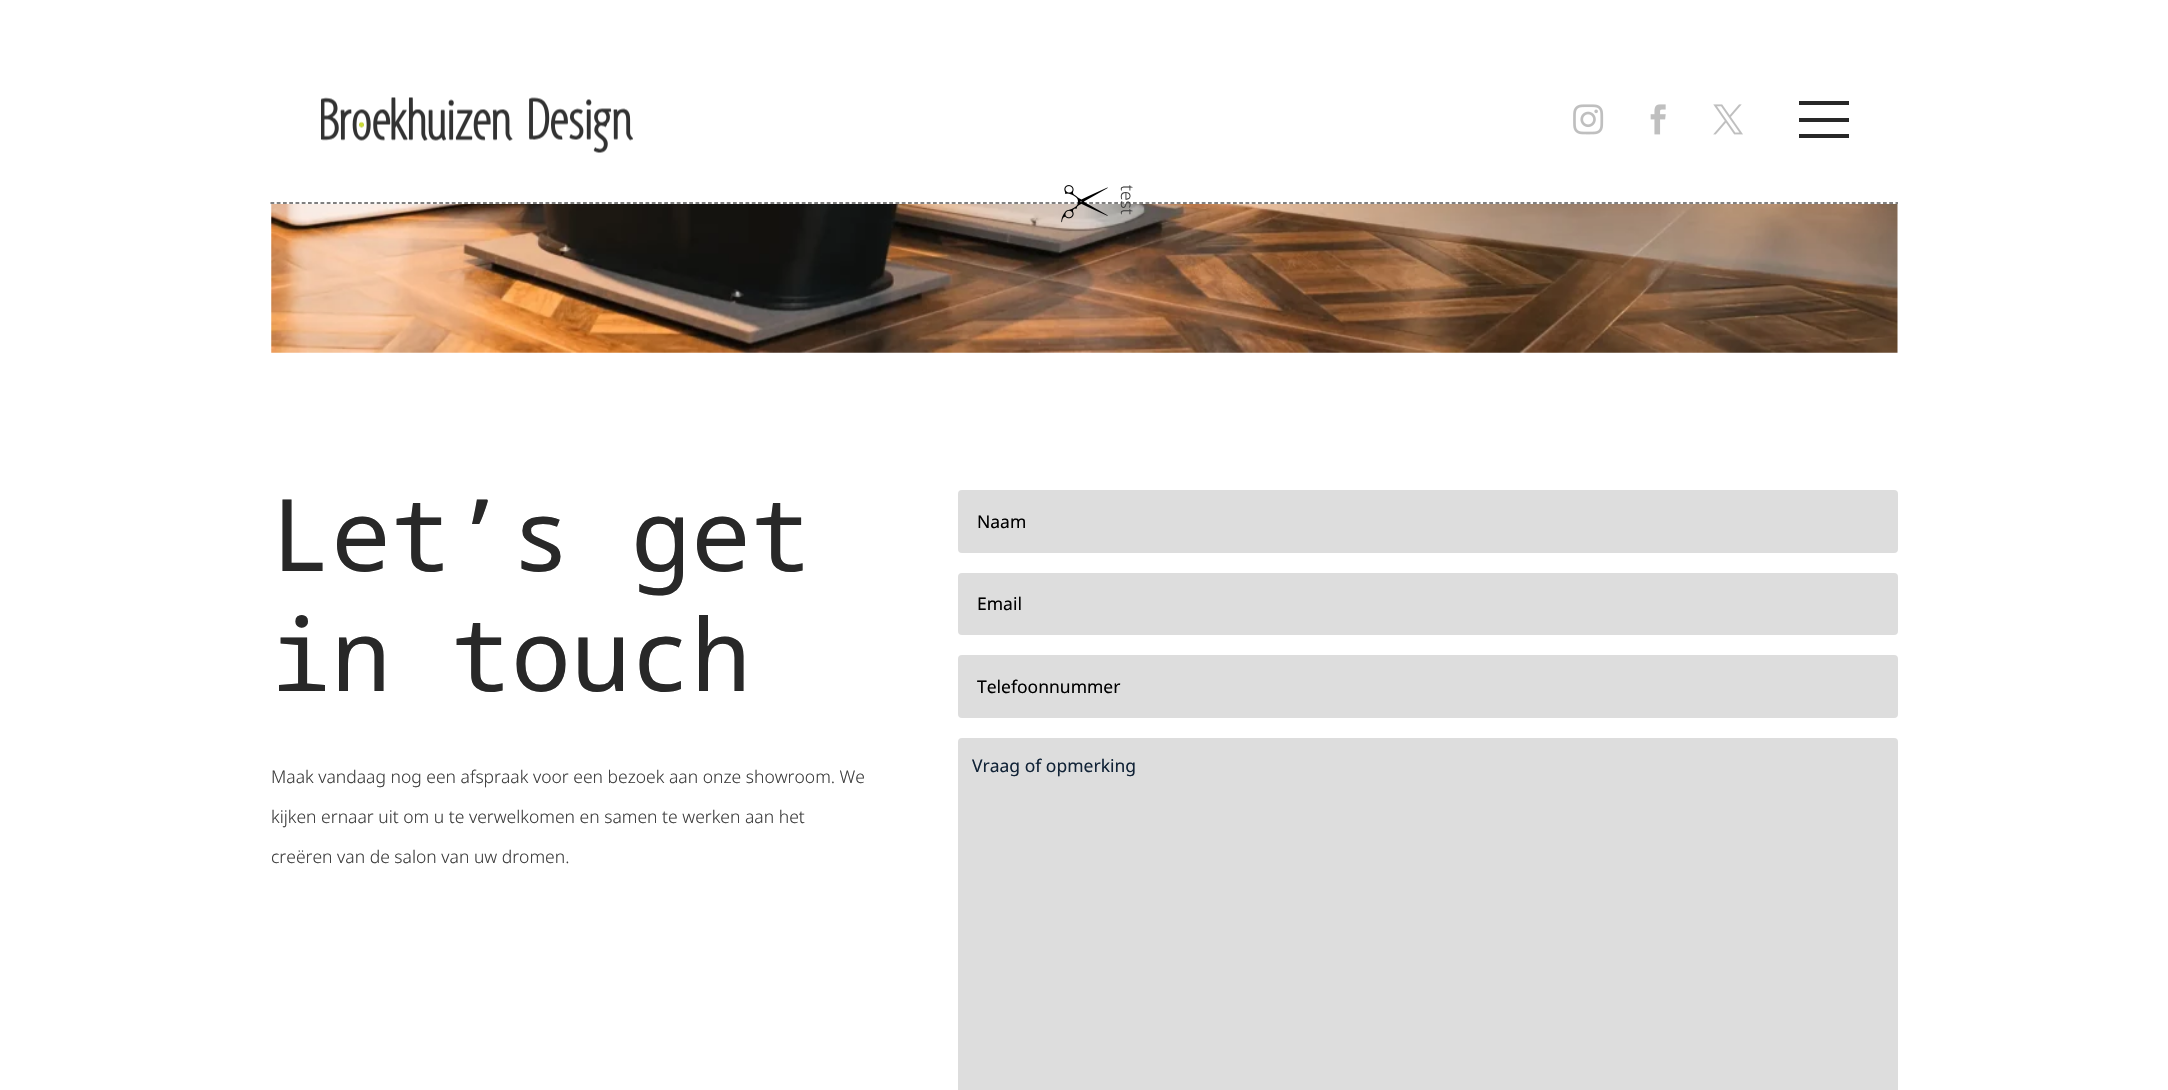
void draw(SkCanvas* canvas) {
	SkPaint paint;
	paint.setAntiAlias(true);
	auto svgPath = [&](const char* data, bool evenOdd = false) {
		SkPath result = *SkParsePath::FromSVGString(data);
		if (evenOdd) result.setFillType(SkPathFillType::kEvenOdd);
		return result;
	};
	canvas->clear(0xffffffff);
	paint.setStroke(true);
	paint.setStrokeWidth(1.2);
	paint.setColor(0xff000000);
	paint.setPathEffect(SkDashPathEffect::Make({{3.75f, 2.5f}}, 0));
	canvas->drawPath(svgPath("M270.5 203H1898"), paint);
	paint.setPathEffect(nullptr);
	canvas->drawImageRect(SkImages::DeferredFromEncodedData(SkData::MakeFromFileName("img1.png")), SkRect::MakeXYWH(321, 97, 312, 56), SkSamplingOptions());
	canvas->drawImageRect(SkImages::DeferredFromEncodedData(SkData::MakeFromFileName("img2.png")), SkRect::MakeXYWH(1573, 104, 31, 31), SkSamplingOptions());
	canvas->drawImageRect(SkImages::DeferredFromEncodedData(SkData::MakeFromFileName("img3.png")), SkRect::MakeXYWH(1650, 104, 16, 31), SkSamplingOptions());
	canvas->drawImageRect(SkImages::DeferredFromEncodedData(SkData::MakeFromFileName("img4.png")), SkRect::MakeXYWH(1713, 104, 30, 31), SkSamplingOptions());
	paint.setStroke(false);
	paint.setColor(0xff282828);
	canvas->drawRect(SkRect::MakeXYWH(1799, 101, 50, 4), paint);
	canvas->drawRect(SkRect::MakeXYWH(1799, 118, 50, 4), paint);
	canvas->drawRect(SkRect::MakeXYWH(1799, 134, 50, 4), paint);
	canvas->drawImageRect(SkImages::DeferredFromEncodedData(SkData::MakeFromFileName("img6.png")), SkRect::MakeXYWH(271, 204, 1627, 149), SkSamplingOptions());
	canvas->drawImageRect(SkImages::DeferredFromEncodedData(SkData::MakeFromFileName("img5.png")), SkRect::MakeXYWH(1061, 185, 47, 38), SkSamplingOptions());
	SkFont f1(fontMgr->matchFamilyStyle("Noto Sans", SkFontStyle(300, SkFontStyle::kNormal_Width, SkFontStyle::kUpright_Slant)), 17.5);
	f1.setSubpixel(true);
	paint.setColor(0xff3f3f3f);
	canvas->save();
	canvas->rotate(90, 1121, 185);
	canvas->drawString("test", 1121, 185, f1, paint);
	canvas->restore();
	SkFont f2(fontMgr->matchFamilyStyle("Noto Sans Mono", SkFontStyle::Normal()), 100);
	f2.setSubpixel(true);
	paint.setColor(0xff282828);
	canvas->drawString("Let’s get", 271, 571, f2, paint);
	canvas->drawString("in touch", 271, 691, f2, paint);
	paint.setColor(0xff3f3f3f);
	canvas->drawString("Maak vandaag nog een afspraak voor een bezoek aan onze showroom. We", 271, 783, f1, paint);
	canvas->drawString("kijken ernaar uit om u te verwelkomen en samen te werken aan het", 271, 823, f1, paint);
	canvas->drawString("creëren van de salon van uw dromen.", 271, 863, f1, paint);
	paint.setColor(0xffdddddd);
	canvas->drawRoundRect(SkRect::MakeXYWH(958, 490, 940, 63), 4, 4, paint);
	SkFont f3(fontMgr->matchFamilyStyle("Noto Sans", SkFontStyle::Normal()), 17.5);
	f3.setSubpixel(true);
	paint.setColor(0xff000000);
	canvas->drawString("Naam", 977, 528, f3, paint);
	paint.setColor(0xffdddddd);
	canvas->drawRoundRect(SkRect::MakeXYWH(958, 573, 940, 62), 4, 4, paint);
	paint.setColor(0xff000000);
	canvas->drawString("Email", 977, 610, f3, paint);
	paint.setColor(0xffdddddd);
	canvas->drawRoundRect(SkRect::MakeXYWH(958, 655, 940, 63), 4, 4, paint);
	paint.setColor(0xff000000);
	canvas->drawString("Telefoonnummer", 977, 693, f3, paint);
	paint.setColor(0xffdddddd);
	canvas->drawRoundRect(SkRect::MakeXYWH(958, 738, 940, 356), 4, 4, paint);
	paint.setColor(0xff112337);
	canvas->drawString("Vraag of opmerking", 972, 772, f3, paint);
}
